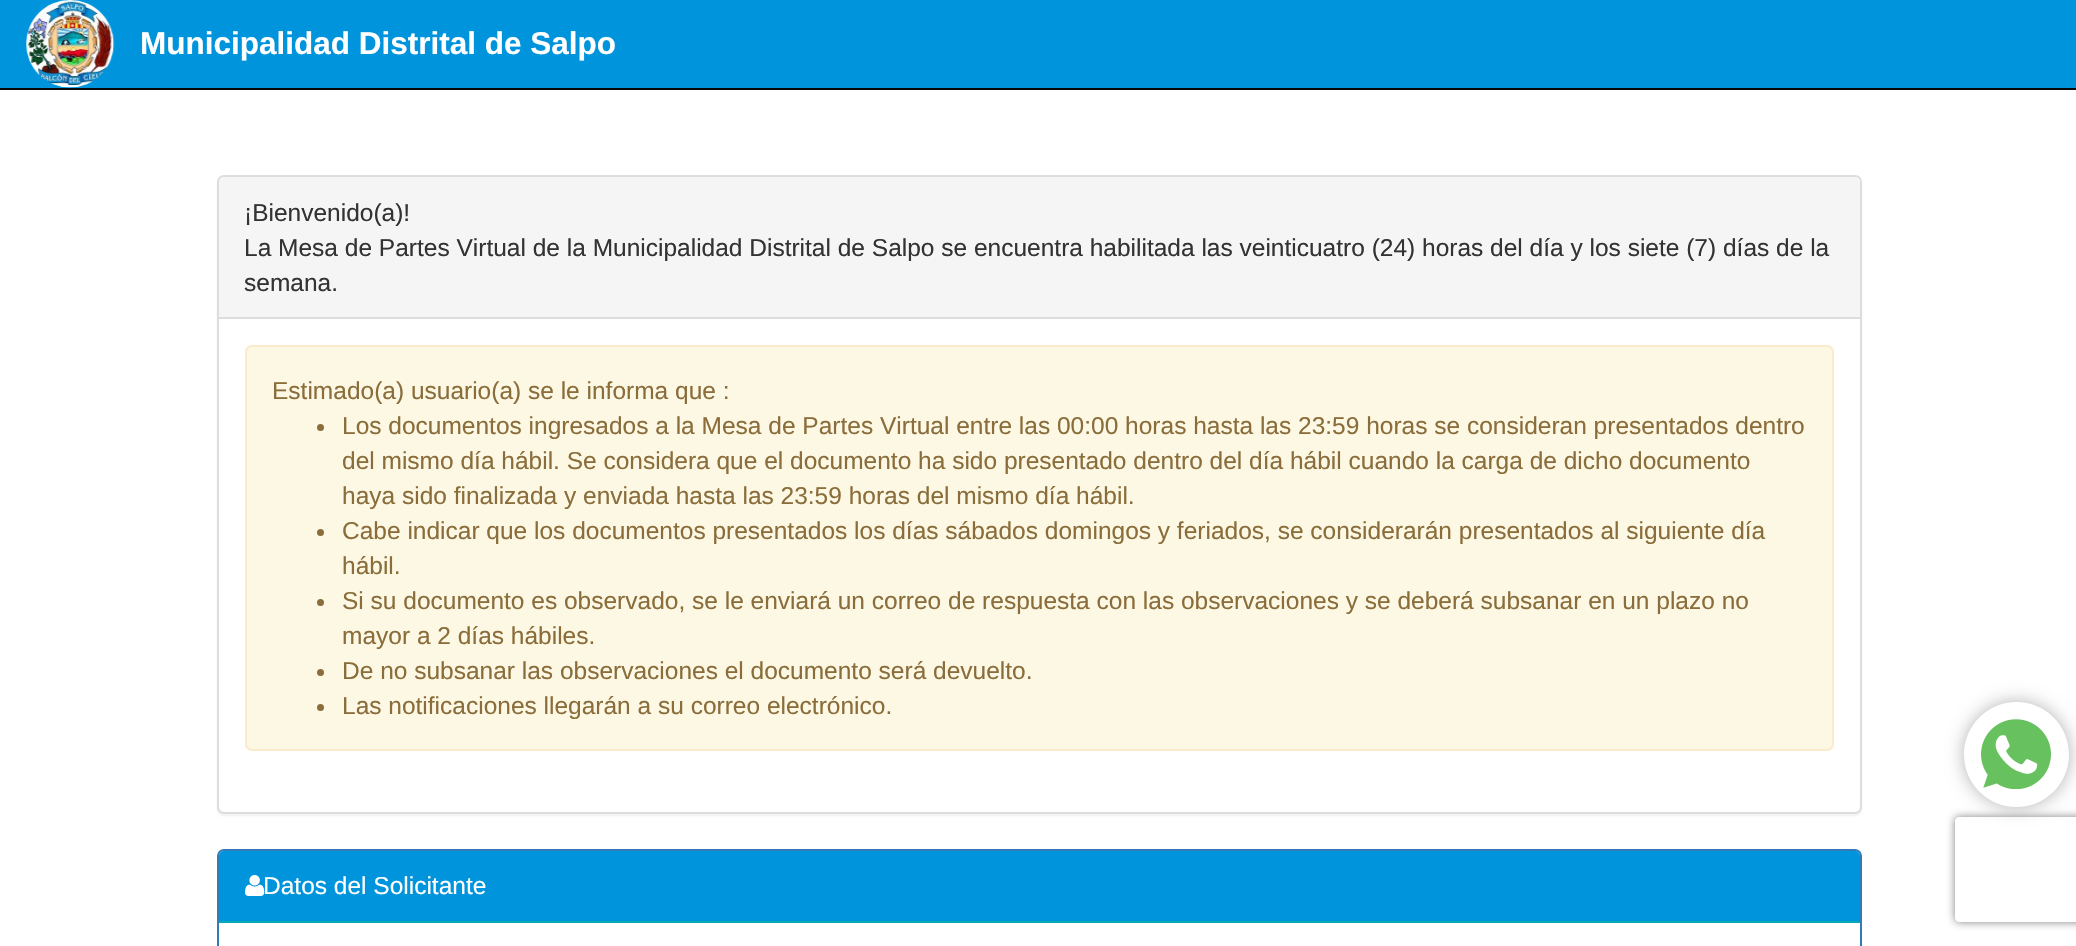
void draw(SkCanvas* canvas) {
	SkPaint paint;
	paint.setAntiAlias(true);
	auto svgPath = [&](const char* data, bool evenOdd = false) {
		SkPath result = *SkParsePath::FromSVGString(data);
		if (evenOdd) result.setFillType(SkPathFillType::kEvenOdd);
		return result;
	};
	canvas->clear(0xffffffff);
	paint.setColor(0xff0094dc);
	canvas->drawRect(SkRect::MakeXYWH(0, 0, 2076, 88), paint);
	paint.setColor(0xff080808);
	canvas->drawRect(SkRect::MakeXYWH(0, 88, 2076, 2), paint);
	canvas->drawImageRect(SkImages::DeferredFromEncodedData(SkData::MakeFromFileName("img1.png")), SkRect::MakeXYWH(26, 0, 89, 88), SkSamplingOptions());
	SkFont f1(fontMgr->matchFamilyStyle("Liberation Sans", SkFontStyle::Bold()), 31.5);
	f1.setSubpixel(true);
	paint.setColor(0xffffffff);
	canvas->drawString("Municipalidad Distrital de Salpo", 140, 54, f1, paint);
	paint.setColor(0x0d000000);
	paint.setMaskFilter(SkMaskFilter::MakeBlur(kNormal_SkBlurStyle, 1));
	canvas->drawRoundRect(SkRect::MakeXYWH(217, 177, 1645, 639), 7, 7, paint);
	paint.setMaskFilter(nullptr);
	paint.setColor(0xffffffff);
	canvas->drawRoundRect(SkRect::MakeXYWH(218, 176, 1643, 637), 6, 6, paint);
	paint.setStroke(true);
	paint.setStrokeWidth(2);
	paint.setColor(0xffdddddd);
	canvas->drawRoundRect(SkRect::MakeXYWH(218, 176, 1643, 637), 6, 6, paint);
	paint.setStroke(false);
	paint.setColor(0xfff5f5f5);
	canvas->drawPath(svgPath("M224 177H1855C1858 177 1860 179 1860 182V319H219V182C219 179 221 177 224 177Z"), paint);
	paint.setColor(0xffdddddd);
	canvas->drawRect(SkRect::MakeXYWH(219, 317, 1641, 2), paint);
	SkFont f2(fontMgr->matchFamilyStyle("Liberation Sans", SkFontStyle::Normal()), 24.5);
	f2.setSubpixel(true);
	paint.setColor(0xff333333);
	canvas->drawString("¡Bienvenido(a)!", 244, 221, f2, paint);
	canvas->drawString("La Mesa de Partes Virtual de la Municipalidad Distrital de Salpo se encuentra habilitada las veinticuatro (24) horas del día y los siete (7) días de la", 244, 256, f2, paint);
	canvas->drawString("semana.", 244, 291, f2, paint);
	paint.setColor(0xfffcf8e3);
	canvas->drawRoundRect(SkRect::MakeXYWH(246, 346, 1587, 404), 6, 6, paint);
	paint.setStroke(true);
	paint.setColor(0xfffaebcc);
	canvas->drawRoundRect(SkRect::MakeXYWH(246, 346, 1587, 404), 6, 6, paint);
	paint.setStroke(false);
	paint.setColor(0xff8a6d3b);
	canvas->drawString("Estimado(a) usuario(a) se le informa que :", 272, 399, f2, paint);
	canvas->drawCircle(320.5, 427.5, 3.5, paint);
	canvas->drawString("Los documentos ingresados a la Mesa de Partes Virtual entre las 00:00 horas hasta las 23:59 horas se consideran presentados dentro", 342, 434, f2, paint);
	canvas->drawString("del mismo día hábil. Se considera que el documento ha sido presentado dentro del día hábil cuando la carga de dicho documento", 342, 469, f2, paint);
	canvas->drawString("haya sido finalizada y enviada hasta las 23:59 horas del mismo día hábil.", 342, 504, f2, paint);
	canvas->drawCircle(320.5, 532.5, 3.5, paint);
	canvas->drawString("Cabe indicar que los documentos presentados los días sábados domingos y feriados, se considerarán presentados al siguiente día", 342, 539, f2, paint);
	canvas->drawString("hábil.", 342, 574, f2, paint);
	canvas->drawCircle(320.5, 602.5, 3.5, paint);
	canvas->drawString("Si su documento es observado, se le enviará un correo de respuesta con las observaciones y se deberá subsanar en un plazo no", 342, 609, f2, paint);
	canvas->drawString("mayor a 2 días hábiles.", 342, 644, f2, paint);
	canvas->drawCircle(320.5, 672.5, 3.5, paint);
	canvas->drawString("De no subsanar las observaciones el documento será devuelto.", 342, 679, f2, paint);
	canvas->drawCircle(320.5, 707.5, 3.5, paint);
	canvas->drawString("Las notificaciones llegarán a su correo electrónico.", 342, 714, f2, paint);
	canvas->save();
	canvas->clipPath(svgPath("M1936 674H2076V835H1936ZM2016.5 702C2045.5 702 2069 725.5 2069 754.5C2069 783.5 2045.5 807 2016.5 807C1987.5 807 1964 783.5 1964 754.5C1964 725.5 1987.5 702 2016.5 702Z", true), true);
	paint.setColor(0x4d000000);
	paint.setMaskFilter(SkMaskFilter::MakeBlur(kNormal_SkBlurStyle, 9));
	canvas->drawRoundRect(SkRect::MakeXYWH(1964, 702, 105, 105), 52.5, 52.5, paint);
	paint.setMaskFilter(nullptr);
	canvas->restore();
	canvas->drawImageRect(SkImages::DeferredFromEncodedData(SkData::MakeFromFileName("img2.png")), SkRect::MakeXYWH(1981, 719, 70, 70), SkSamplingOptions());
	paint.setStroke(true);
	paint.setColor(0xff337ab7);
	canvas->drawRoundRect(SkRect::MakeXYWH(218, 850, 1643, 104), 6, 6, paint);
	paint.setStroke(false);
	paint.setColor(0xff0094dc);
	canvas->drawPath(svgPath("M224 851H1855C1858 851 1860 853 1860 856V922H219V856C219 853 221 851 224 851Z"), paint);
	paint.setColor(0xff07a9b4);
	canvas->drawRect(SkRect::MakeXYWH(219, 921, 1641, 2), paint);
	canvas->drawImageRect(SkImages::DeferredFromEncodedData(SkData::MakeFromFileName("img3.png")), SkRect::MakeXYWH(245, 875, 20, 21), SkSamplingOptions());
	paint.setColor(0xffffffff);
	canvas->drawString("Datos del Solicitante", 263, 894, f2, paint);
	canvas->save();
	canvas->clipPath(svgPath("M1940 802H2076V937H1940ZM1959 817H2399C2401 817 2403 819 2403 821V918C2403 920 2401 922 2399 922H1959C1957 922 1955 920 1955 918V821C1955 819 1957 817 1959 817Z", true), true);
	paint.setColor(0xff808080);
	paint.setMaskFilter(SkMaskFilter::MakeBlur(kNormal_SkBlurStyle, 4.5));
	canvas->drawRoundRect(SkRect::MakeXYWH(1955, 817, 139, 105), 4, 4, paint);
	paint.setMaskFilter(nullptr);
	canvas->restore();
}
